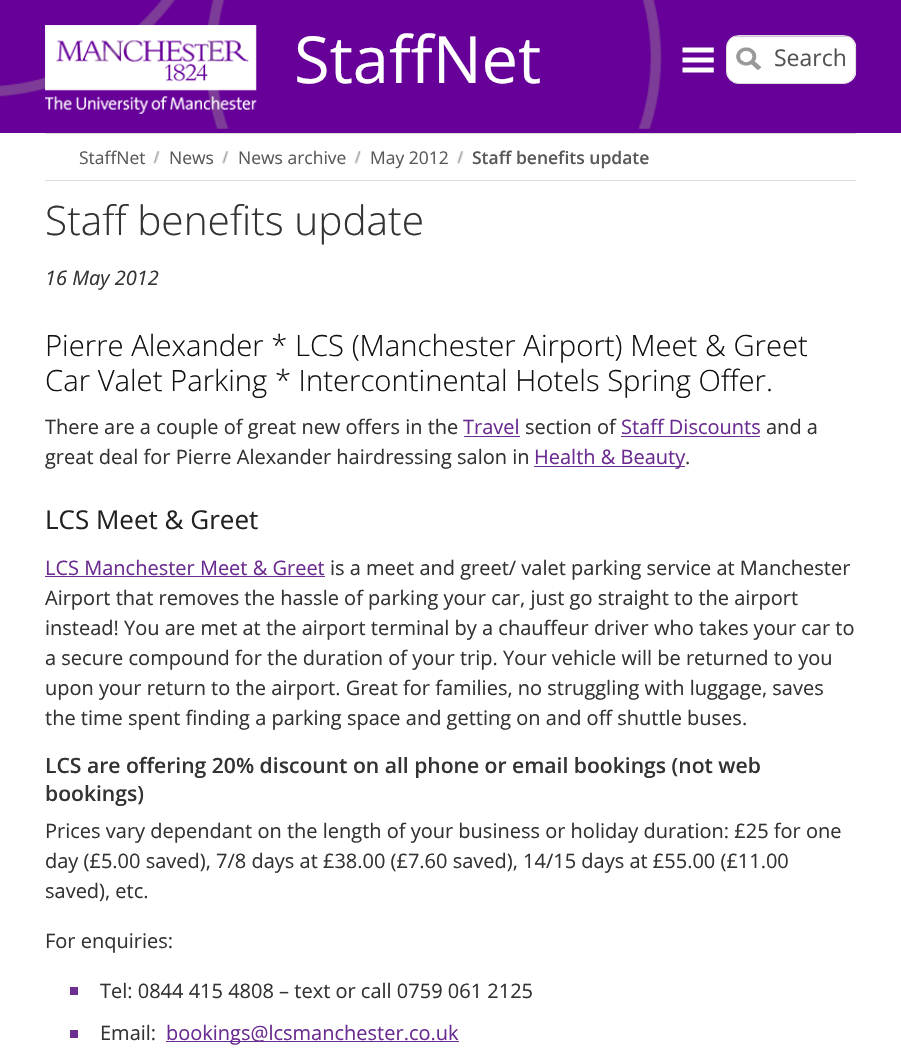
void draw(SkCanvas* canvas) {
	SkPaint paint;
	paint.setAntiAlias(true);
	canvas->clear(0xff660099);
	canvas->drawImageRect(SkImages::DeferredFromEncodedData(SkData::MakeFromFileName("img1.png")), SkRect::MakeXYWH(0, 77, 45, 20), SkSamplingOptions());
	canvas->drawImageRect(SkImages::DeferredFromEncodedData(SkData::MakeFromFileName("img2.png")), SkRect::MakeXYWH(45, 0, 617, 129), SkSamplingOptions());
	canvas->drawImageRect(SkImages::DeferredFromEncodedData(SkData::MakeFromFileName("img3.png")), SkRect::MakeXYWH(45, 25, 212, 89), SkSamplingOptions());
	SkFont f1(fontMgr->matchFamilyStyle("Open Sans", SkFontStyle::Normal()), 65);
	f1.setSubpixel(true);
	paint.setColor(0xffffffff);
	canvas->drawString("StaffNet", 294, 83, f1, paint);
	canvas->drawImageRect(SkImages::DeferredFromEncodedData(SkData::MakeFromFileName("img4.png")), SkRect::MakeXYWH(682, 47, 32, 26), SkSamplingOptions());
	canvas->drawImageRect(SkImages::DeferredFromEncodedData(SkData::MakeFromFileName("img5.png")), SkRect::MakeXYWH(726, 36, 131, 48), SkSamplingOptions());
	paint.setStroke(true);
	paint.setStrokeWidth(1);
	paint.setColor(0xffdddddd);
	canvas->drawRoundRect(SkRect::MakeXYWH(726.5, 35.5, 129, 48), 12.5, 12.5, paint);
	canvas->drawImageRect(SkImages::DeferredFromEncodedData(SkData::MakeFromFileName("img6.png")), SkRect::MakeXYWH(736, 47, 26, 23), SkSamplingOptions());
	SkFont f2(fontMgr->matchFamilyStyle("Open Sans", SkFontStyle::Normal()), 23);
	f2.setSubpixel(true);
	paint.setStroke(false);
	paint.setColor(0xff525355);
	canvas->drawString("Search", 774, 66, f2, paint);
	paint.setColor(0xffffffff);
	canvas->drawRect(SkRect::MakeXYWH(0, 133, 901, 917), paint);
	paint.setColor(0xffdddddd);
	canvas->drawRect(SkRect::MakeXYWH(45, 133, 811, 1), paint);
	canvas->drawRect(SkRect::MakeXYWH(45, 180, 811, 1), paint);
	canvas->drawImageRect(SkImages::DeferredFromEncodedData(SkData::MakeFromFileName("img7.png")), SkRect::MakeXYWH(153, 151, 7, 13), SkSamplingOptions());
	SkFont f3(fontMgr->matchFamilyStyle("Open Sans", SkFontStyle::Normal()), 17.5);
	f3.setSubpixel(true);
	paint.setColor(0xff57595a);
	canvas->drawString("StaffNet", 79, 164, f3, paint);
	canvas->drawImageRect(SkImages::DeferredFromEncodedData(SkData::MakeFromFileName("img8.png")), SkRect::MakeXYWH(222, 151, 7, 13), SkSamplingOptions());
	canvas->drawString("News", 169, 164, f3, paint);
	canvas->drawImageRect(SkImages::DeferredFromEncodedData(SkData::MakeFromFileName("img9.png")), SkRect::MakeXYWH(354, 151, 7, 13), SkSamplingOptions());
	canvas->drawString("News archive", 238, 164, f3, paint);
	canvas->drawImageRect(SkImages::DeferredFromEncodedData(SkData::MakeFromFileName("img8.png")), SkRect::MakeXYWH(457, 151, 7, 13), SkSamplingOptions());
	canvas->drawString("May 2012", 370, 164, f3, paint);
	SkFont f4(fontMgr->matchFamilyStyle("Open Sans", SkFontStyle(600, SkFontStyle::kNormal_Width, SkFontStyle::kUpright_Slant)), 17.5);
	f4.setSubpixel(true);
	canvas->drawString("Staff benefits update", 472, 164, f4, paint);
	SkFont f5(fontMgr->matchFamilyStyle("Open Sans", SkFontStyle(300, SkFontStyle::kNormal_Width, SkFontStyle::kUpright_Slant)), 40.6);
	f5.setSubpixel(true);
	paint.setColor(0xff333333);
	canvas->drawString("Staff benefits update", 45, 235, f5, paint);
	SkFont f6(fontMgr->matchFamilyStyle("Open Sans", SkFontStyle::Italic()), 20);
	f6.setSubpixel(true);
	canvas->drawString("16 May 2012", 45, 285, f6, paint);
	SkFont f7(fontMgr->matchFamilyStyle("Open Sans", SkFontStyle(300, SkFontStyle::kNormal_Width, SkFontStyle::kUpright_Slant)), 29.25);
	f7.setSubpixel(true);
	paint.setColor(0xff111111);
	canvas->drawString("Pierre Alexander * LCS (Manchester Airport) Meet & Greet", 45, 356, f7, paint);
	canvas->drawString("Car Valet Parking * Intercontinental Hotels Spring Offer.", 45, 391, f7, paint);
	SkFont f8(fontMgr->matchFamilyStyle("Open Sans", SkFontStyle::Normal()), 20);
	f8.setSubpixel(true);
	paint.setColor(0xff333333);
	canvas->drawString("There are a couple of great new offers in the", 45, 434, f8, paint);
	paint.setColor(0xff6b2c91);
	canvas->drawString("Travel", 463, 434, f8, paint);
	canvas->drawRect(SkRect::MakeXYWH(464, 436, 56, 1), paint);
	paint.setColor(0xff333333);
	canvas->drawString("section of", 525, 434, f8, paint);
	paint.setColor(0xff6b2c91);
	canvas->drawString("Staff Discounts", 621, 434, f8, paint);
	canvas->drawRect(SkRect::MakeXYWH(621, 436, 139, 1), paint);
	paint.setColor(0xff333333);
	canvas->drawString("and a", 766, 434, f8, paint);
	canvas->drawString("great deal for Pierre Alexander hairdressing salon in", 45, 464, f8, paint);
	paint.setColor(0xff6b2c91);
	canvas->drawRect(SkRect::MakeXYWH(534, 466, 151, 1), paint);
	canvas->drawString("Health & Beauty", 534, 464, f8, paint);
	paint.setColor(0xff333333);
	canvas->drawString(".", 685, 464, f8, paint);
	SkFont f9(fontMgr->matchFamilyStyle("Open Sans", SkFontStyle::Normal()), 26);
	f9.setSubpixel(true);
	paint.setColor(0xff222222);
	canvas->drawString("LCS Meet & Greet", 45, 529, f9, paint);
	paint.setColor(0xff6b2c91);
	canvas->drawString("LCS Manchester Meet & Greet", 45, 575, f8, paint);
	canvas->drawRect(SkRect::MakeXYWH(45, 576, 280, 1), paint);
	paint.setColor(0xff333333);
	canvas->drawString("is a meet and greet/ valet parking service at Manchester", 330, 575, f8, paint);
	canvas->drawString("Airport that removes the hassle of parking your car, just go straight to the airport", 45, 605, f8, paint);
	canvas->drawString("instead! You are met at the airport terminal by a chauffeur driver who takes your car to", 45, 635, f8, paint);
	canvas->drawString("a secure compound for the duration of your trip. Your vehicle will be returned to you", 45, 665, f8, paint);
	canvas->drawString("upon your return to the airport. Great for families, no struggling with luggage, saves", 45, 695, f8, paint);
	canvas->drawString("the time spent finding a parking space and getting on and off shuttle buses.", 45, 725, f8, paint);
	SkFont f10(fontMgr->matchFamilyStyle("Open Sans", SkFontStyle(600, SkFontStyle::kNormal_Width, SkFontStyle::kUpright_Slant)), 21.1);
	f10.setSubpixel(true);
	canvas->drawString("LCS are offering 20% discount on all phone or email bookings (not web", 45, 773, f10, paint);
	canvas->drawString("bookings)", 45, 801, f10, paint);
	canvas->drawString("Prices vary dependant on the length of your business or holiday duration: £25 for one", 45, 838, f8, paint);
	canvas->drawString("day (£5.00 saved), 7/8 days at £38.00 (£7.60 saved), 14/15 days at £55.00 (£11.00", 45, 868, f8, paint);
	canvas->drawString("saved), etc.", 45, 898, f8, paint);
	canvas->drawString("For enquiries:", 45, 948, f8, paint);
	paint.setColor(0xff6c2f91);
	canvas->drawRect(SkRect::MakeXYWH(70, 987, 8, 8), paint);
	paint.setColor(0xff333333);
	canvas->drawString("Tel: 0844 415 4808 – text or call 0759 061 2125", 100, 998, f8, paint);
	paint.setColor(0xff6c2f91);
	canvas->drawRect(SkRect::MakeXYWH(70, 1030, 8, 8), paint);
	paint.setColor(0xff333333);
	canvas->drawString("Email:", 100, 1040, f8, paint);
	paint.setColor(0xff6b2c91);
	canvas->drawRect(SkRect::MakeXYWH(166, 1041, 293, 1), paint);
	canvas->drawString("bookings@lcsmanchester.co.uk", 166, 1040, f8, paint);
}
